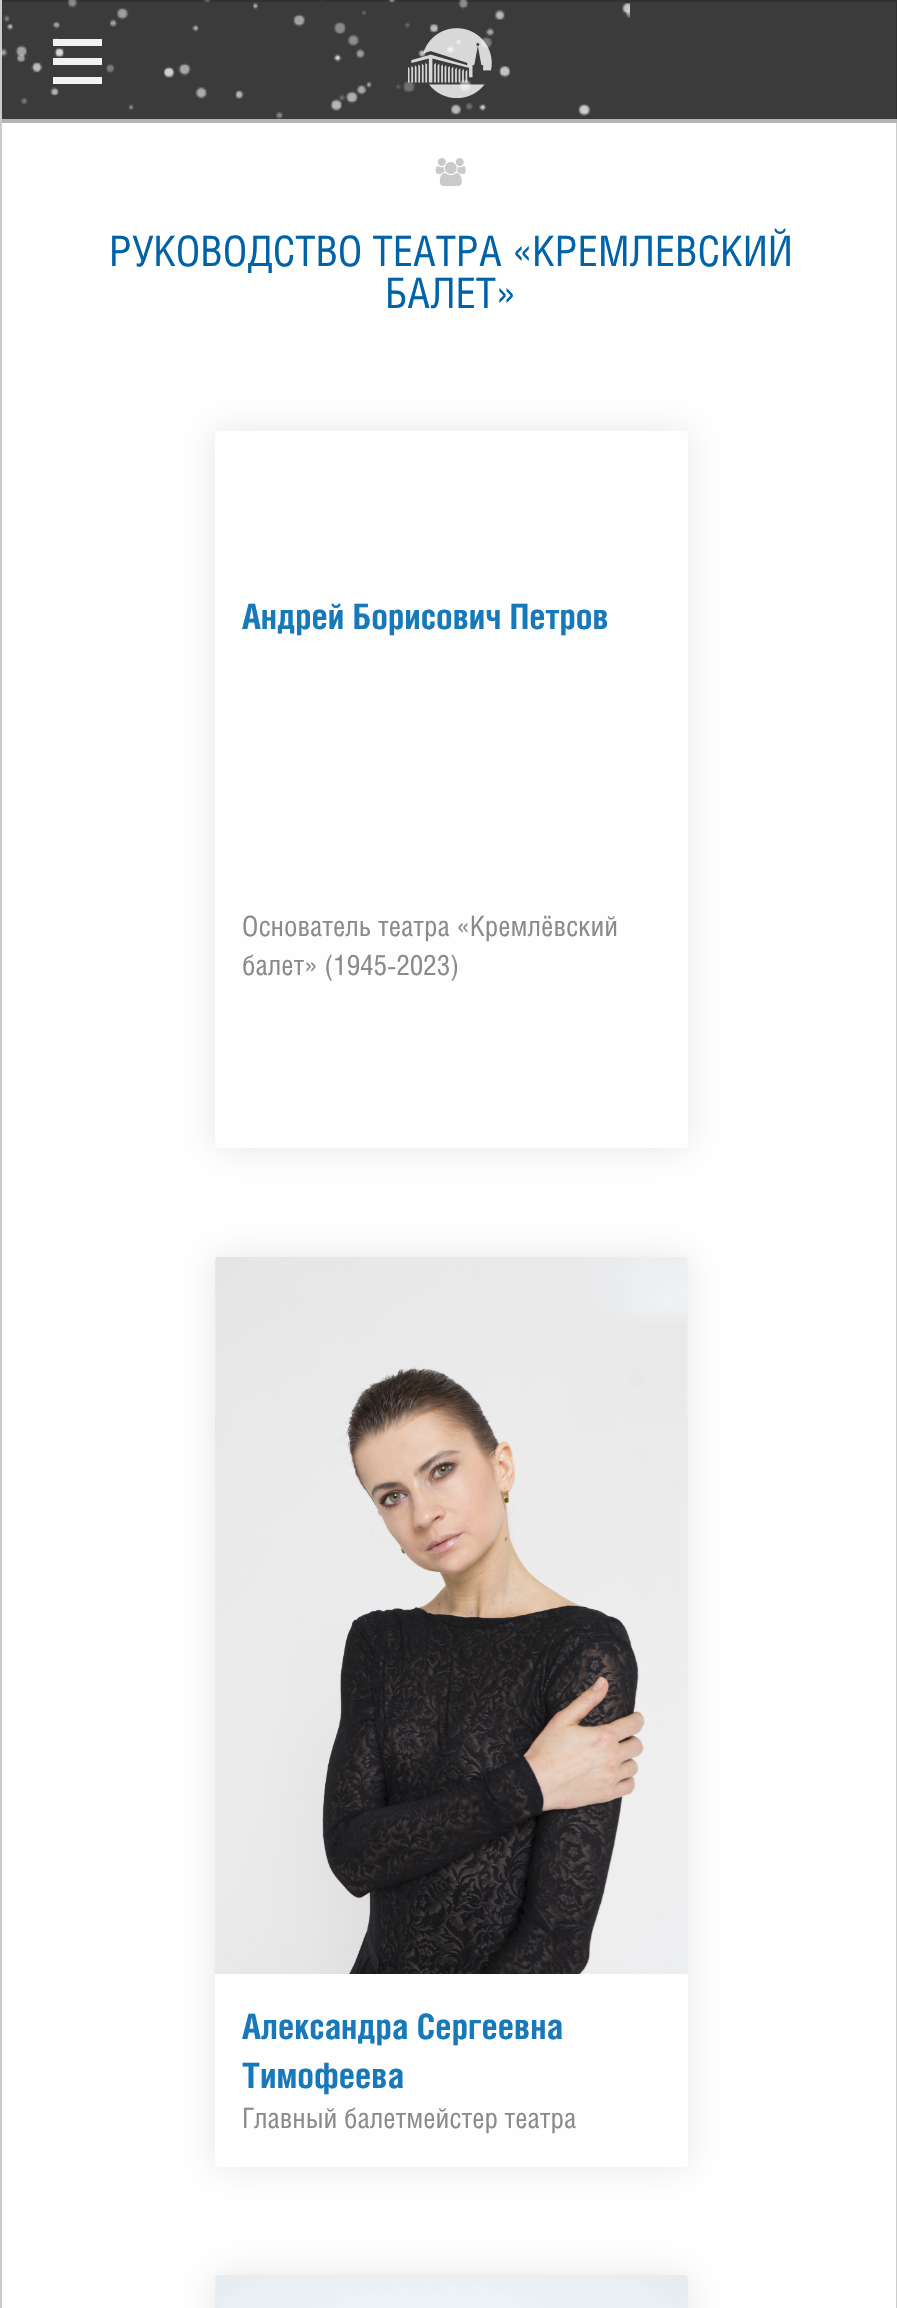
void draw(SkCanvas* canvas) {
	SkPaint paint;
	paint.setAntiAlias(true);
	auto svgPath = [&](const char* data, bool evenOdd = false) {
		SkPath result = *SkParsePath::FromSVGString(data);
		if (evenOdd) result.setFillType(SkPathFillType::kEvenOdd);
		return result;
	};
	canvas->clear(0xffffffff);
	paint.setStroke(true);
	paint.setStrokeWidth(2);
	paint.setColor(0xffcccccc);
	canvas->drawRect(SkRect::MakeXYWH(1, 1, 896, 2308), paint);
	paint.setStroke(false);
	paint.setColor(0xcc0a0a0a);
	canvas->drawRect(SkRect::MakeXYWH(2, 0, 895, 123), paint);
	paint.setColor(0xccd4d3d3);
	canvas->drawRect(SkRect::MakeXYWH(2, 119, 895, 4), paint);
	canvas->drawImageRect(SkImages::DeferredFromEncodedData(SkData::MakeFromFileName("img1.png")), SkRect::MakeXYWH(1, 0, 629, 119), SkSamplingOptions());
	paint.setColor(0xfff1f1f1);
	canvas->drawRect(SkRect::MakeXYWH(53, 77, 49, 7), paint);
	canvas->drawRect(SkRect::MakeXYWH(53, 58, 49, 7), paint);
	canvas->drawRect(SkRect::MakeXYWH(53, 39, 49, 7), paint);
	canvas->drawImageRect(SkImages::DeferredFromEncodedData(SkData::MakeFromFileName("img2.png")), SkRect::MakeXYWH(408, 28, 84, 70), SkSamplingOptions());
	canvas->drawImageRect(SkImages::DeferredFromEncodedData(SkData::MakeFromFileName("img3.png")), SkRect::MakeXYWH(435, 158, 31, 28), SkSamplingOptions());
	SkFont f1(fontMgr->matchFamilyStyle("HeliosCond", SkFontStyle::Normal()), 42);
	f1.setSubpixel(true);
	paint.setColor(0xff0062a7);
	canvas->drawString("РУКОВОДСТВО ТЕАТРА «КРЕМЛЕВСКИЙ", 109, 266, f1, paint);
	canvas->drawString("БАЛЕТ»", 385, 308, f1, paint);
	paint.setColor(0xffe6e6e6);
	paint.setMaskFilter(SkMaskFilter::MakeBlur(kNormal_SkBlurStyle, 17.5));
	canvas->drawRoundRect(SkRect::MakeXYWH(215, 431, 473, 717), 4, 4, paint);
	paint.setMaskFilter(nullptr);
	paint.setColor(0xfffefefe);
	canvas->drawRoundRect(SkRect::MakeXYWH(215, 431, 473, 717), 4, 4, paint);
	SkFont f2(fontMgr->matchFamilyStyle("HeliosCond", SkFontStyle::Bold()), 35);
	f2.setSubpixel(true);
	paint.setColor(0xff1779ba);
	canvas->drawString("Андрей Борисович Петров", 242, 629, f2, paint);
	SkFont f3(fontMgr->matchFamilyStyle("HeliosCond", SkFontStyle::Normal()), 28);
	f3.setSubpixel(true);
	paint.setColor(0xff8a8a8a);
	canvas->drawString("Основатель театра «Кремлёвский", 242, 936, f3, paint);
	canvas->drawString("балет» (1945-2023)", 242, 975, f3, paint);
	paint.setColor(0xffe6e6e6);
	paint.setMaskFilter(SkMaskFilter::MakeBlur(kNormal_SkBlurStyle, 17.5));
	canvas->drawRoundRect(SkRect::MakeXYWH(215, 1257, 473, 910), 4, 4, paint);
	paint.setMaskFilter(nullptr);
	canvas->drawImageRect(SkImages::DeferredFromEncodedData(SkData::MakeFromFileName("img4.png")), SkRect::MakeXYWH(215, 1257, 473, 717), SkSamplingOptions());
	paint.setColor(0xfffefefe);
	canvas->drawPath(svgPath("M215 1974H688V2163C688 2165 686 2167 684 2167H219C217 2167 215 2165 215 2163Z"), paint);
	paint.setColor(0xff1779ba);
	canvas->drawString("Александра Сергеевна", 242, 2039, f2, paint);
	canvas->drawString("Тимофеева", 242, 2088, f2, paint);
	paint.setColor(0xff8a8a8a);
	canvas->drawString("Главный балетмейстер театра", 242, 2128, f3, paint);
	paint.setColor(0xffe6e6e6);
	paint.setMaskFilter(SkMaskFilter::MakeBlur(kNormal_SkBlurStyle, 17.5));
	canvas->drawRoundRect(SkRect::MakeXYWH(215, 2275, 473, 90), 4, 4, paint);
	paint.setMaskFilter(nullptr);
	canvas->drawImageRect(SkImages::DeferredFromEncodedData(SkData::MakeFromFileName("img5.png")), SkRect::MakeXYWH(215, 2275, 473, 33), SkSamplingOptions());
}
